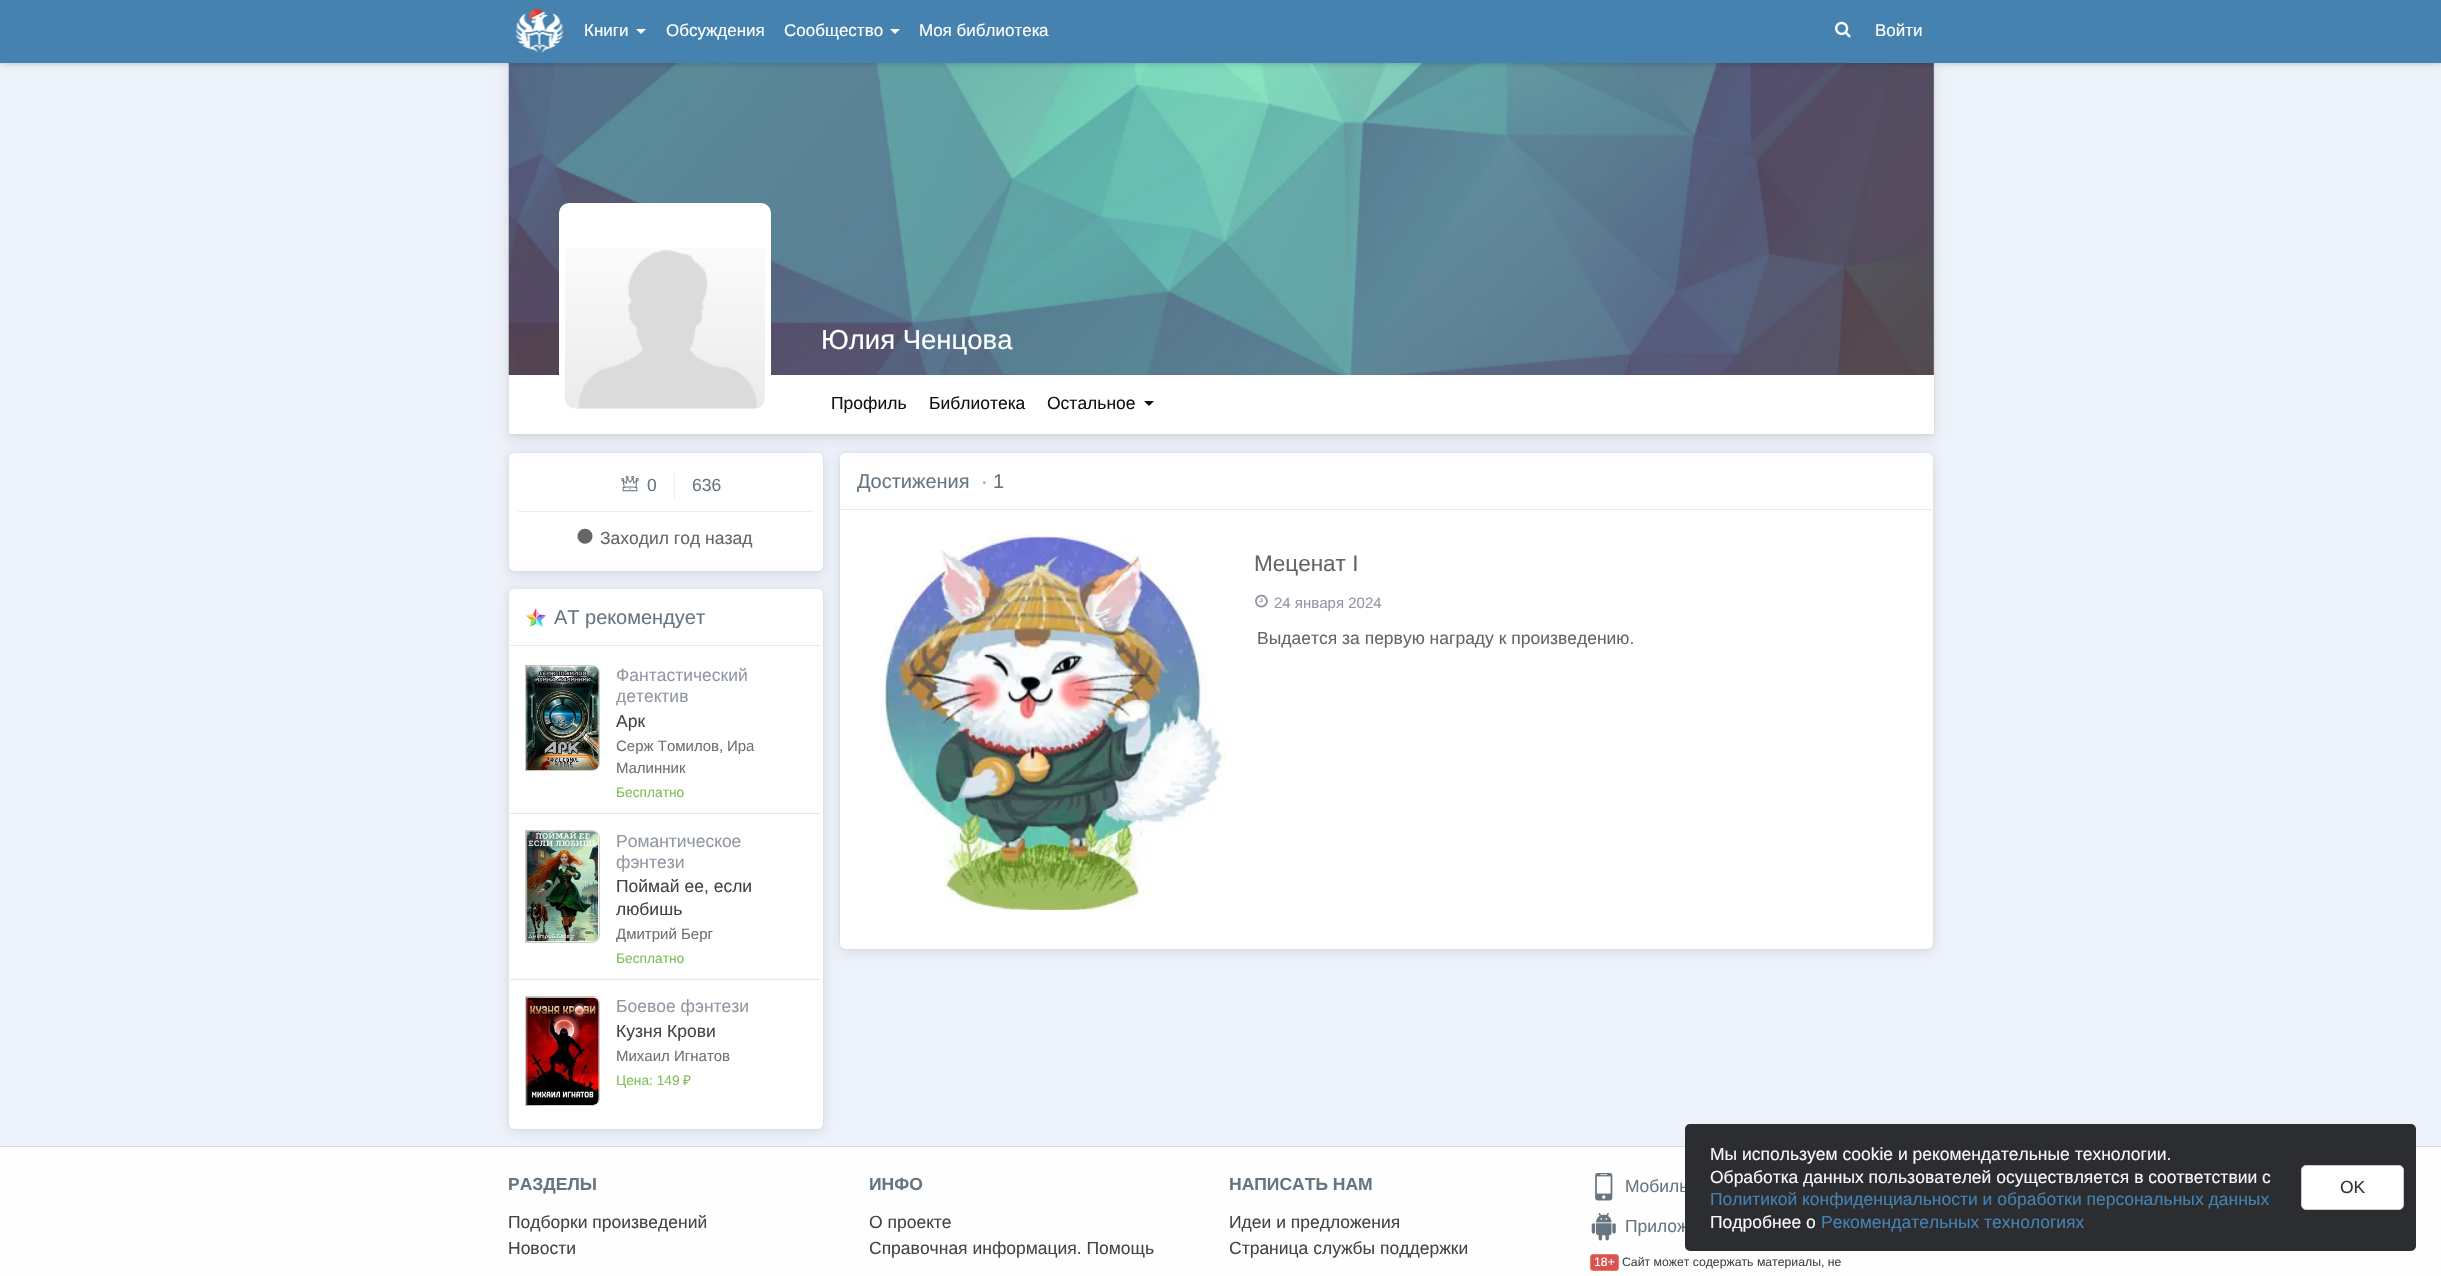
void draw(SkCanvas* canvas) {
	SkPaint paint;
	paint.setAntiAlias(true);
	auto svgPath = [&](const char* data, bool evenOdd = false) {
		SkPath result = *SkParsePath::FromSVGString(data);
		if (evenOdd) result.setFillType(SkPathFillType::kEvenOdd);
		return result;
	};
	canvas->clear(0xffeef3fb);
	paint.setColor(0x1f000000);
	paint.setMaskFilter(SkMaskFilter::MakeBlur(kNormal_SkBlurStyle, 6));
	canvas->drawRect(SkRect::MakeXYWH(509, 65, 1425, 373), paint);
	paint.setMaskFilter(nullptr);
	paint.setMaskFilter(SkMaskFilter::MakeBlur(kNormal_SkBlurStyle, 0.5));
	canvas->drawRect(SkRect::MakeXYWH(509, 63, 1425, 372), paint);
	paint.setMaskFilter(nullptr);
	canvas->drawImageRect(SkImages::DeferredFromEncodedData(SkData::MakeFromFileName("img3.png")), SkRect::MakeXYWH(508, 63, 1426, 312), SkSamplingOptions());
	paint.setColor(0x40000000);
	paint.setMaskFilter(SkMaskFilter::MakeBlur(kNormal_SkBlurStyle, 3));
	canvas->drawRect(SkRect::MakeXYWH(0, 0, 2441, 63), paint);
	paint.setMaskFilter(nullptr);
	paint.setColor(0xff4582af);
	canvas->drawRect(SkRect::MakeXYWH(0, 0, 2441, 63), paint);
	canvas->drawImageRect(SkImages::DeferredFromEncodedData(SkData::MakeFromFileName("img1.png")), SkRect::MakeXYWH(515, 8, 49, 45), SkSamplingOptions());
	SkFont f1(fontMgr->matchFamilyStyle("Liberation Sans", SkFontStyle::Normal()), 17);
	f1.setSubpixel(true);
	paint.setColor(0xffffffff);
	canvas->drawString("Книги", 584, 36, f1, paint);
	canvas->drawPath(svgPath("M636 29H646L641 34Z"), paint);
	canvas->drawString("Обсуждения", 666, 36, f1, paint);
	canvas->drawString("Сообщество", 784, 36, f1, paint);
	canvas->drawPath(svgPath("M890 29H900L895 34Z"), paint);
	canvas->drawString("Моя библиотека", 919, 36, f1, paint);
	canvas->drawImageRect(SkImages::DeferredFromEncodedData(SkData::MakeFromFileName("img2.png")), SkRect::MakeXYWH(1835, 21, 16, 17), SkSamplingOptions());
	canvas->drawString("Войти", 1875, 36, f1, paint);
	SkFont f2(fontMgr->matchFamilyStyle("Liberation Sans", SkFontStyle::Normal()), 27.5);
	f2.setSubpixel(true);
	canvas->drawString("Юлия Ченцова", 821, 349, f2, paint);
	paint.setColor(0xffdddddd);
	canvas->drawRect(SkRect::MakeXYWH(509, 434, 1425, 1), paint);
	paint.setColor(0xffffffff);
	canvas->drawRect(SkRect::MakeXYWH(509, 375, 1425, 59), paint);
	canvas->drawRoundRect(SkRect::MakeXYWH(562, 206, 206, 206), 7, 7, paint);
	paint.setStroke(true);
	paint.setStrokeWidth(6);
	canvas->drawRoundRect(SkRect::MakeXYWH(562, 206, 206, 206), 7, 7, paint);
	canvas->drawImageRect(SkImages::DeferredFromEncodedData(SkData::MakeFromFileName("img4.png")), SkRect::MakeXYWH(565, 248, 200, 161), SkSamplingOptions());
	SkFont f3(fontMgr->matchFamilyStyle("Liberation Sans", SkFontStyle::Normal()), 17.5);
	f3.setSubpixel(true);
	paint.setStroke(false);
	paint.setColor(0xff121212);
	canvas->drawString("Профиль", 831, 409, f3, paint);
	canvas->drawString("Библиотека", 929, 409, f3, paint);
	canvas->drawString("Остальное", 1047, 409, f3, paint);
	canvas->drawPath(svgPath("M1144 401H1154L1149 406Z"), paint);
	paint.setColor(0x1f000000);
	paint.setMaskFilter(SkMaskFilter::MakeBlur(kNormal_SkBlurStyle, 6));
	canvas->drawRoundRect(SkRect::MakeXYWH(509, 455, 314, 119), 5, 5, paint);
	paint.setMaskFilter(nullptr);
	paint.setMaskFilter(SkMaskFilter::MakeBlur(kNormal_SkBlurStyle, 0.5));
	canvas->drawRoundRect(SkRect::MakeXYWH(509, 453, 314, 118), 5, 5, paint);
	paint.setMaskFilter(nullptr);
	paint.setColor(0xffffffff);
	canvas->drawRoundRect(SkRect::MakeXYWH(509, 453, 314, 118), 5, 5, paint);
	paint.setColor(0xffe9edf8);
	canvas->drawRect(SkRect::MakeXYWH(518, 511, 296, 1), paint);
	canvas->drawImageRect(SkImages::DeferredFromEncodedData(SkData::MakeFromFileName("img5.png")), SkRect::MakeXYWH(621, 476, 18, 16), SkSamplingOptions());
	paint.setColor(0xff66757f);
	canvas->drawString("0", 647, 491, f3, paint);
	paint.setColor(0xffe9edf8);
	canvas->drawRect(SkRect::MakeXYWH(674, 473, 1, 26), paint);
	paint.setColor(0xff66757f);
	canvas->drawString("636", 692, 491, f3, paint);
	canvas->drawImageRect(SkImages::DeferredFromEncodedData(SkData::MakeFromFileName("img6.png")), SkRect::MakeXYWH(577, 528, 16, 16), SkSamplingOptions());
	paint.setColor(0xff656565);
	canvas->drawString("Заходил год назад", 600, 544, f3, paint);
	paint.setColor(0x1f000000);
	paint.setMaskFilter(SkMaskFilter::MakeBlur(kNormal_SkBlurStyle, 6));
	canvas->drawRoundRect(SkRect::MakeXYWH(509, 591, 314, 540), 5, 5, paint);
	paint.setMaskFilter(nullptr);
	paint.setMaskFilter(SkMaskFilter::MakeBlur(kNormal_SkBlurStyle, 0.5));
	canvas->drawRoundRect(SkRect::MakeXYWH(509, 589, 314, 540), 5, 5, paint);
	paint.setMaskFilter(nullptr);
	paint.setColor(0xffffffff);
	canvas->drawRoundRect(SkRect::MakeXYWH(509, 589, 314, 540), 5, 5, paint);
	paint.setColor(0xffe4eaec);
	canvas->drawRect(SkRect::MakeXYWH(510, 645, 311, 1), paint);
	paint.setColor(0xff933ec5);
	canvas->drawPath(svgPath("M546 615.5L539.5 614.5L536 618.5Z"), paint);
	paint.setColor(0xff00d7df);
	canvas->drawPath(svgPath("M541 620L536 618.5L542.5 627Z"), paint);
	canvas->drawImageRect(SkImages::DeferredFromEncodedData(SkData::MakeFromFileName("img7.png")), SkRect::MakeXYWH(530, 618, 7, 9), SkSamplingOptions());
	paint.setColor(0xffff9811);
	canvas->drawPath(svgPath("M531 620L536 618.5L526 615.5Z"), paint);
	paint.setColor(0xffea348b);
	canvas->drawPath(svgPath("M536 618.5V608L533 614.5Z"), paint);
	paint.setColor(0xfff7aed1);
	canvas->drawPath(svgPath("M539.5 614.5L536 608V618.5Z"), paint);
	paint.setColor(0xffffda44);
	canvas->drawPath(svgPath("M533 614.5L526 615.5L536 618.5Z"), paint);
	paint.setColor(0xff99eff2);
	canvas->drawPath(svgPath("M536 624L542.5 627L536 618.5Z"), paint);
	paint.setColor(0xff7c84e8);
	canvas->drawPath(svgPath("M541 620L546 615.5L536 618.5Z"), paint);
	paint.setColor(0xff91dc5a);
	canvas->drawPath(svgPath("M531 620L530 627L536 618.5Z"), paint);
	SkFont f4(fontMgr->matchFamilyStyle("Liberation Sans", SkFontStyle::Normal()), 20);
	f4.setSubpixel(true);
	paint.setColor(0xff66757f);
	canvas->drawString("AT рекомендует", 554, 624, f4, paint);
	paint.setColor(0xffe1e8ed);
	canvas->drawRect(SkRect::MakeXYWH(510, 813, 311, 1), paint);
	paint.setColor(0xfff6f4ee);
	canvas->drawPath(svgPath("M525 665H592C596.5 665 600 668.5 600 673V763C600 767.5 596.5 771 592 771H525Z"), paint);
	paint.setStroke(true);
	paint.setStrokeWidth(1);
	paint.setColor(0x26000000);
	canvas->drawPath(svgPath("M525.5 665.5H592C596 665.5 599.5 669 599.5 673V763C599.5 767 596 770.5 592 770.5H525.5Z"), paint);
	canvas->drawImageRect(SkImages::DeferredFromEncodedData(SkData::MakeFromFileName("img8.png")), SkRect::MakeXYWH(526, 666, 73, 104), SkSamplingOptions());
	canvas->drawImageRect(SkImages::DeferredFromEncodedData(SkData::MakeFromFileName("img9.png")), SkRect::MakeXYWH(525, 665, 21, 106), SkSamplingOptions());
	paint.setStroke(false);
	paint.setColor(0xff9197a3);
	canvas->drawString("Фантастический", 616, 681, f3, paint);
	canvas->drawString("детектив", 616, 702, f3, paint);
	paint.setColor(0xff444444);
	canvas->drawString("Арк", 616, 727, f3, paint);
	SkFont f5(fontMgr->matchFamilyStyle("Liberation Sans", SkFontStyle::Normal()), 15);
	f5.setSubpixel(true);
	paint.setColor(0xff717171);
	canvas->drawString("Серж Томилов", 616, 751, f5, paint);
	paint.setColor(0xff656565);
	canvas->drawString(",", 719, 751, f5, paint);
	paint.setColor(0xff717171);
	canvas->drawString("Ира", 727, 751, f5, paint);
	canvas->drawString("Малинник", 616, 773, f5, paint);
	SkFont f6(fontMgr->matchFamilyStyle("Liberation Sans", SkFontStyle::Normal()), 13.75);
	f6.setSubpixel(true);
	paint.setColor(0xff80be58);
	canvas->drawString("Бесплатно", 616, 797, f6, paint);
	paint.setColor(0xffe1e8ed);
	canvas->drawRect(SkRect::MakeXYWH(510, 979, 311, 1), paint);
	paint.setColor(0xfff6f4ee);
	canvas->drawPath(svgPath("M525 830H592C596.5 830 600 833.5 600 838V935C600 939.5 596.5 943 592 943H525Z"), paint);
	paint.setStroke(true);
	paint.setColor(0x26000000);
	canvas->drawPath(svgPath("M525.5 830.5H592C596 830.5 599.5 834 599.5 838V935C599.5 939 596 942.5 592 942.5H525.5Z"), paint);
	canvas->drawImageRect(SkImages::DeferredFromEncodedData(SkData::MakeFromFileName("img10.png")), SkRect::MakeXYWH(526, 831, 73, 111), SkSamplingOptions());
	canvas->drawImageRect(SkImages::DeferredFromEncodedData(SkData::MakeFromFileName("img11.png")), SkRect::MakeXYWH(525, 830, 21, 113), SkSamplingOptions());
	paint.setStroke(false);
	paint.setColor(0xff9197a3);
	canvas->drawString("Романтическое", 616, 847, f3, paint);
	canvas->drawString("фэнтези", 616, 868, f3, paint);
	paint.setColor(0xff444444);
	canvas->drawString("Поймай ее, если", 616, 892, f3, paint);
	canvas->drawString("любишь", 616, 915, f3, paint);
	paint.setColor(0xff717171);
	canvas->drawString("Дмитрий Берг", 616, 939, f5, paint);
	paint.setColor(0xff80be58);
	canvas->drawString("Бесплатно", 616, 963, f6, paint);
	paint.setColor(0xfff6f4ee);
	canvas->drawPath(svgPath("M525 996H592C596.5 996 600 999.5 600 1004V1098C600 1102.5 596.5 1106 592 1106H525Z"), paint);
	paint.setStroke(true);
	paint.setColor(0x26000000);
	canvas->drawPath(svgPath("M525.5 996.5H592C596 996.5 599.5 1000 599.5 1004V1098C599.5 1102 596 1105.5 592 1105.5H525.5Z"), paint);
	canvas->drawImageRect(SkImages::DeferredFromEncodedData(SkData::MakeFromFileName("img12.png")), SkRect::MakeXYWH(526, 997, 73, 108), SkSamplingOptions());
	canvas->drawImageRect(SkImages::DeferredFromEncodedData(SkData::MakeFromFileName("img13.png")), SkRect::MakeXYWH(525, 996, 21, 110), SkSamplingOptions());
	paint.setStroke(false);
	paint.setColor(0xff9197a3);
	canvas->drawString("Боевое фэнтези", 616, 1012, f3, paint);
	paint.setColor(0xff444444);
	canvas->drawString("Кузня Крови", 616, 1037, f3, paint);
	paint.setColor(0xff717171);
	canvas->drawString("Михаил Игнатов", 616, 1061, f5, paint);
	paint.setColor(0xff80be58);
	canvas->drawString("Цена: 149", 616, 1085, f6, paint);
	SkFont f7(fontMgr->matchFamilyStyle("Noto Sans", SkFontStyle::Normal()), 13.75);
	f7.setSubpixel(true);
	canvas->drawString("₽", 683, 1085, f7, paint);
	paint.setColor(0x1f000000);
	paint.setMaskFilter(SkMaskFilter::MakeBlur(kNormal_SkBlurStyle, 6));
	canvas->drawRoundRect(SkRect::MakeXYWH(840, 455, 1093, 496), 5, 5, paint);
	paint.setMaskFilter(nullptr);
	paint.setMaskFilter(SkMaskFilter::MakeBlur(kNormal_SkBlurStyle, 0.5));
	canvas->drawRoundRect(SkRect::MakeXYWH(840, 453, 1093, 496), 5, 5, paint);
	paint.setMaskFilter(nullptr);
	paint.setColor(0xffffffff);
	canvas->drawRoundRect(SkRect::MakeXYWH(840, 453, 1093, 496), 5, 5, paint);
	paint.setColor(0xffe4eaec);
	canvas->drawRect(SkRect::MakeXYWH(841, 509, 1090, 1), paint);
	paint.setColor(0xff66757f);
	canvas->drawString("Достижения", 857, 488, f4, paint);
	paint.setColor(0xff9197a3);
	canvas->drawString("·", 981, 488, f4, paint);
	paint.setColor(0xff66757f);
	canvas->drawString("1", 993, 488, f4, paint);
	canvas->drawImageRect(SkImages::DeferredFromEncodedData(SkData::MakeFromFileName("img14.png")), SkRect::MakeXYWH(884, 535, 343, 375), SkSamplingOptions());
	SkFont f8(fontMgr->matchFamilyStyle("Liberation Sans", SkFontStyle::Normal()), 22.5);
	f8.setSubpixel(true);
	paint.setColor(0xff656565);
	canvas->drawString("Меценат I", 1254, 571, f8, paint);
	canvas->drawImageRect(SkImages::DeferredFromEncodedData(SkData::MakeFromFileName("img15.png")), SkRect::MakeXYWH(1255, 594, 13, 14), SkSamplingOptions());
	paint.setColor(0xff9197a3);
	canvas->drawString("24 января 2024", 1274, 608, f5, paint);
	paint.setColor(0xff656565);
	canvas->drawString("Выдается за первую награду к произведению.", 1257, 644, f3, paint);
	paint.setColor(0xfffefefe);
	canvas->drawRect(SkRect::MakeXYWH(0, 1147, 2441, 129), paint);
	paint.setColor(0xffd8d8d8);
	canvas->drawRect(SkRect::MakeXYWH(0, 1146, 2441, 1), paint);
	SkFont f9(fontMgr->matchFamilyStyle("Liberation Sans", SkFontStyle::Bold()), 17.5);
	f9.setSubpixel(true);
	paint.setColor(0xff66757f);
	canvas->drawString("РАЗДЕЛЫ", 508, 1190, f9, paint);
	paint.setColor(0xff444444);
	canvas->drawString("Подборки произведений", 508, 1228, f3, paint);
	canvas->drawString("Новости", 508, 1254, f3, paint);
	paint.setColor(0xff66757f);
	canvas->drawString("ИНФО", 869, 1190, f9, paint);
	paint.setColor(0xff444444);
	canvas->drawString("О проекте", 869, 1228, f3, paint);
	canvas->drawString("Справочная информация. Помощь", 869, 1254, f3, paint);
	paint.setColor(0xff66757f);
	canvas->drawString("НАПИСАТЬ НАМ", 1229, 1190, f9, paint);
	paint.setColor(0xff444444);
	canvas->drawString("Идеи и предложения", 1229, 1228, f3, paint);
	canvas->drawString("Страница службы поддержки", 1229, 1254, f3, paint);
	canvas->drawImageRect(SkImages::DeferredFromEncodedData(SkData::MakeFromFileName("img16.png")), SkRect::MakeXYWH(1595, 1173, 18, 28), SkSamplingOptions());
	paint.setColor(0xff66757f);
	canvas->drawString("Мобиль", 1625, 1192, f3, paint);
	canvas->drawImageRect(SkImages::DeferredFromEncodedData(SkData::MakeFromFileName("img17.png")), SkRect::MakeXYWH(1591, 1213, 25, 28), SkSamplingOptions());
	canvas->drawString("Прилож", 1625, 1232, f3, paint);
	paint.setColor(0xffd9534f);
	canvas->drawRoundRect(SkRect::MakeXYWH(1590.5, 1254.5, 28, 16), 2.5, 2.5, paint);
	paint.setStroke(true);
	paint.setColor(0xffe27c79);
	canvas->drawRoundRect(SkRect::MakeXYWH(1590.5, 1254.5, 28, 16), 2.5, 2.5, paint);
	SkFont f10(fontMgr->matchFamilyStyle("Liberation Sans", SkFontStyle::Normal()), 12.25);
	f10.setSubpixel(true);
	paint.setStroke(false);
	paint.setColor(0xffffffff);
	canvas->drawString("18+", 1594, 1266, f10, paint);
	paint.setColor(0xff444444);
	canvas->drawString("Сайт может содержать материалы, не", 1622, 1266, f10, paint);
	paint.setColor(0xff2b2d31);
	canvas->drawRoundRect(SkRect::MakeXYWH(1685, 1124, 731, 127), 5, 5, paint);
	paint.setColor(0xfff9f9f9);
	canvas->drawString("Мы используем cookie и рекомендательные технологии.", 1710, 1160, f3, paint);
	canvas->drawString("Обработка данных пользователей осуществляется в соответствии с", 1710, 1183, f3, paint);
	paint.setColor(0xff4582af);
	canvas->drawString("Политикой конфиденциальности и обработки персональных данных", 1710, 1205, f3, paint);
	paint.setColor(0xfff9f9f9);
	canvas->drawString("Подробнее о", 1710, 1228, f3, paint);
	paint.setColor(0xff4582af);
	canvas->drawString("Рекомендательных технологиях", 1821, 1228, f3, paint);
	paint.setColor(0xffffffff);
	canvas->drawRoundRect(SkRect::MakeXYWH(2301.5, 1165.5, 102, 44), 4.5, 4.5, paint);
	paint.setStroke(true);
	paint.setColor(0xffcccccc);
	canvas->drawRoundRect(SkRect::MakeXYWH(2301.5, 1165.5, 102, 44), 4.5, 4.5, paint);
	paint.setStroke(false);
	paint.setColor(0xff333333);
	canvas->drawString("OK", 2340, 1193, f3, paint);
}
